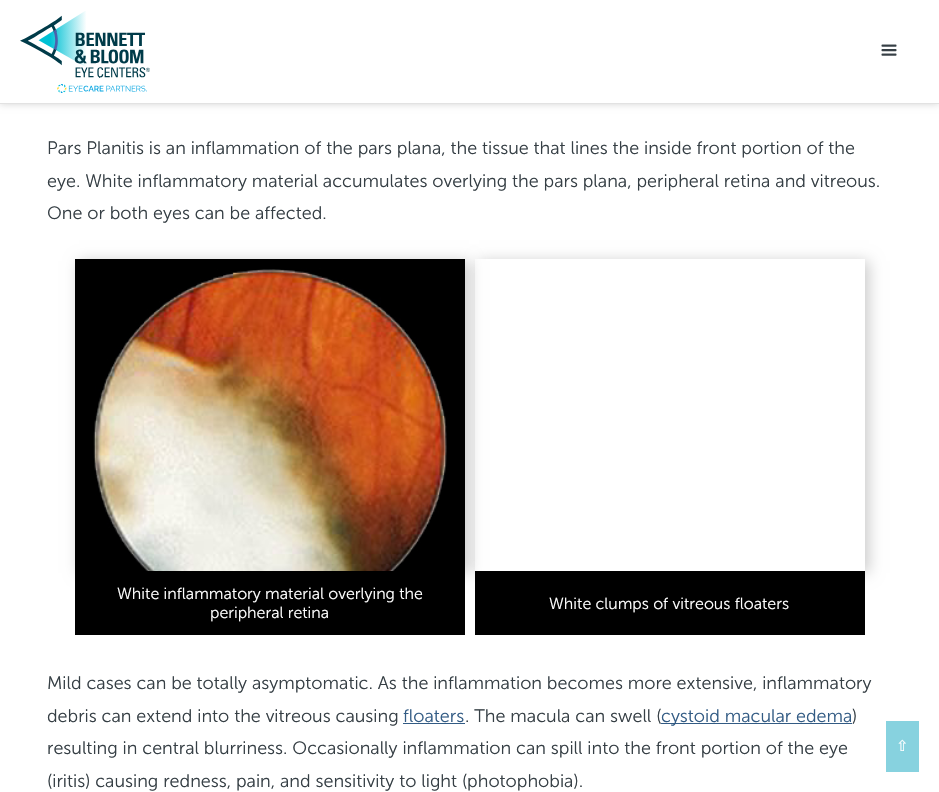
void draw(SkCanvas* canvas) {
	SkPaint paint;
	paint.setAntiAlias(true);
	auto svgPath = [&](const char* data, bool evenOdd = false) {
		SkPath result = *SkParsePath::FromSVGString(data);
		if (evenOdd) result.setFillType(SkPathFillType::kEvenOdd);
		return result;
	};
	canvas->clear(0xffffffff);
	paint.setColor(0x2b000000);
	paint.setMaskFilter(SkMaskFilter::MakeBlur(kNormal_SkBlurStyle, 3.5));
	canvas->drawRect(SkRect::MakeXYWH(0, 0, 939, 104), paint);
	paint.setMaskFilter(nullptr);
	paint.setColor(0xffffffff);
	canvas->drawRect(SkRect::MakeXYWH(0, 0, 939, 103), paint);
	paint.setColor(0xffe2e2e2);
	canvas->drawRect(SkRect::MakeXYWH(0, 103, 939, 1), paint);
	canvas->drawImageRect(SkImages::DeferredFromEncodedData(SkData::MakeFromFileName("img1.png")), SkRect::MakeXYWH(20, 11, 130, 82), SkSamplingOptions());
	canvas->drawImageRect(SkImages::DeferredFromEncodedData(SkData::MakeFromFileName("img2.png")), SkRect::MakeXYWH(881, 44, 16, 12), SkSamplingOptions());
	SkFont f1(fontMgr->matchFamilyStyle("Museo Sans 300", SkFontStyle(300, SkFontStyle::kNormal_Width, SkFontStyle::kUpright_Slant)), 18);
	f1.setSubpixel(true);
	paint.setColor(0xff363f45);
	canvas->drawString("Pars Planitis is an inflammation of the pars plana, the tissue that lines the inside front portion of the", 47, 154, f1, paint);
	canvas->drawString("eye. White inflammatory material accumulates overlying the pars plana, peripheral retina and vitreous.", 47, 187, f1, paint);
	canvas->drawString("One or both eyes can be affected.", 47, 219, f1, paint);
	paint.setColor(0xff000000);
	canvas->drawRect(SkRect::MakeXYWH(75, 571, 390, 64), paint);
	canvas->drawRect(SkRect::MakeXYWH(475, 571, 390, 64), paint);
	paint.setColor(0x33000000);
	paint.setMaskFilter(SkMaskFilter::MakeBlur(kNormal_SkBlurStyle, 7));
	canvas->drawRect(SkRect::MakeXYWH(79, 261, 390, 312), paint);
	paint.setMaskFilter(nullptr);
	canvas->drawImageRect(SkImages::DeferredFromEncodedData(SkData::MakeFromFileName("img3.png")), SkRect::MakeXYWH(75, 259, 390, 312), SkSamplingOptions());
	SkFont f2(fontMgr->matchFamilyStyle("Museo Sans 300", SkFontStyle(300, SkFontStyle::kNormal_Width, SkFontStyle::kUpright_Slant)), 16);
	f2.setSubpixel(true);
	paint.setColor(0xffffffff);
	canvas->drawString("White inflammatory material overlying the", 117, 599, f2, paint);
	canvas->drawString("peripheral retina", 210, 618, f2, paint);
	canvas->save();
	canvas->clipPath(svgPath("M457 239H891V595H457ZM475 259H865V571H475Z", true), true);
	paint.setColor(0x33000000);
	paint.setMaskFilter(SkMaskFilter::MakeBlur(kNormal_SkBlurStyle, 7));
	canvas->drawRect(SkRect::MakeXYWH(479, 261, 390, 312), paint);
	paint.setMaskFilter(nullptr);
	canvas->restore();
	paint.setColor(0xffffffff);
	canvas->drawString("White clumps of vitreous floaters", 549, 609, f2, paint);
	paint.setColor(0xff363f45);
	canvas->drawString("Mild cases can be totally asymptomatic. As the inflammation becomes more extensive, inflammatory", 47, 689, f1, paint);
	canvas->drawString("debris can extend into the vitreous causing", 47, 722, f1, paint);
	paint.setColor(0xff325b84);
	canvas->drawString("floaters", 403, 722, f1, paint);
	canvas->drawRect(SkRect::MakeXYWH(403, 723, 62, 1), paint);
	paint.setColor(0xff363f45);
	canvas->drawString(". The macula can swell (", 465, 722, f1, paint);
	paint.setColor(0xff325b84);
	canvas->drawRect(SkRect::MakeXYWH(661, 723, 191, 1), paint);
	canvas->drawString("cystoid macular edema", 661, 722, f1, paint);
	paint.setColor(0xff363f45);
	canvas->drawString(")", 852, 722, f1, paint);
	canvas->drawString("resulting in central blurriness. Occasionally inflammation can spill into the front portion of the eye", 47, 754, f1, paint);
	canvas->drawString("(iritis) causing redness, pain, and sensitivity to light (photophobia).", 47, 787, f1, paint);
	paint.setColor(0xff87d2df);
	canvas->drawRect(SkRect::MakeXYWH(886, 721, 33, 51), paint);
	SkFont f3(fontMgr->matchFamilyStyle("DejaVu Sans", SkFontStyle::Normal()), 15);
	f3.setSubpixel(true);
	paint.setColor(0xffffffff);
	canvas->drawString("⇧", 896, 751, f3, paint);
}
